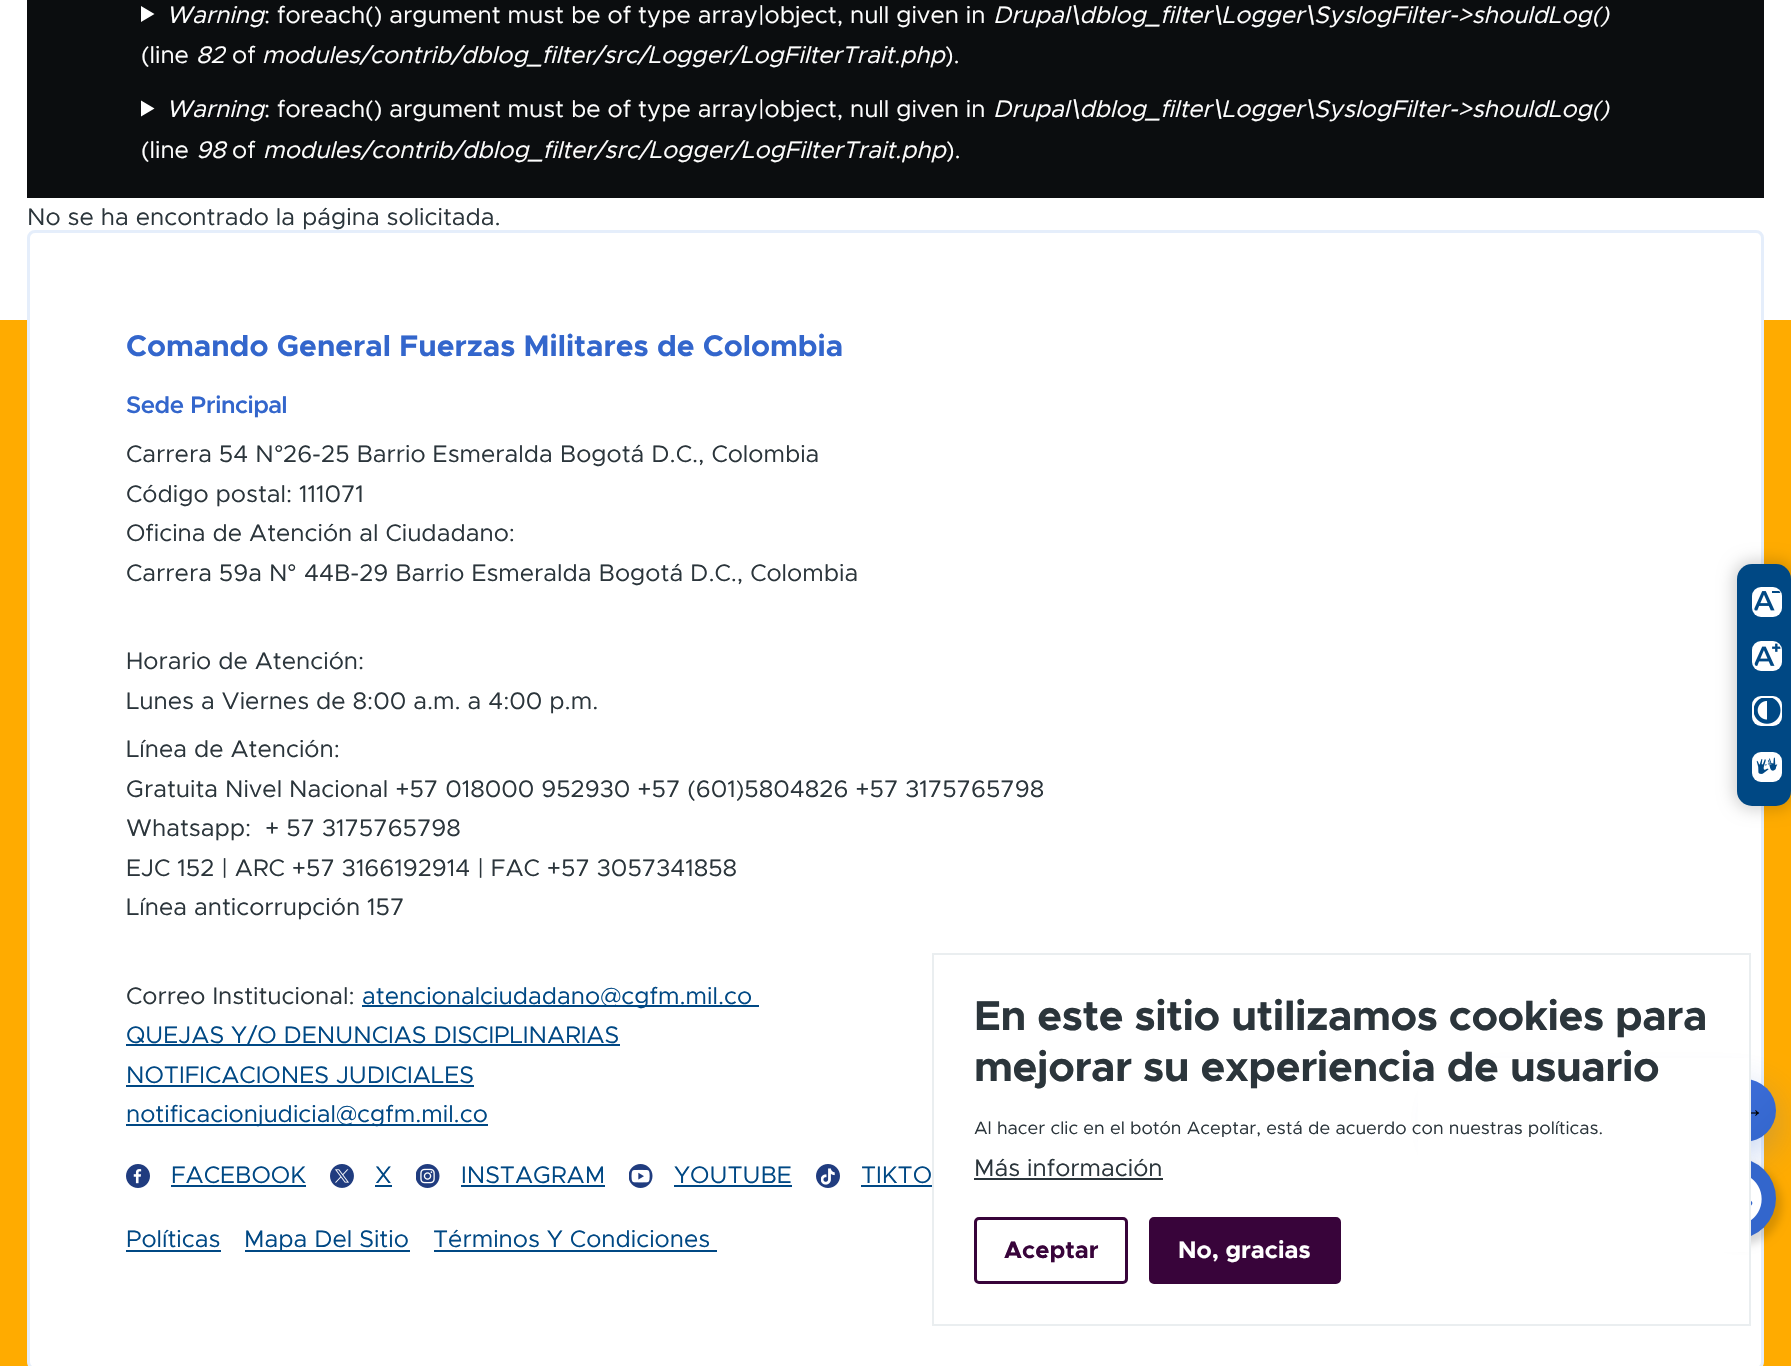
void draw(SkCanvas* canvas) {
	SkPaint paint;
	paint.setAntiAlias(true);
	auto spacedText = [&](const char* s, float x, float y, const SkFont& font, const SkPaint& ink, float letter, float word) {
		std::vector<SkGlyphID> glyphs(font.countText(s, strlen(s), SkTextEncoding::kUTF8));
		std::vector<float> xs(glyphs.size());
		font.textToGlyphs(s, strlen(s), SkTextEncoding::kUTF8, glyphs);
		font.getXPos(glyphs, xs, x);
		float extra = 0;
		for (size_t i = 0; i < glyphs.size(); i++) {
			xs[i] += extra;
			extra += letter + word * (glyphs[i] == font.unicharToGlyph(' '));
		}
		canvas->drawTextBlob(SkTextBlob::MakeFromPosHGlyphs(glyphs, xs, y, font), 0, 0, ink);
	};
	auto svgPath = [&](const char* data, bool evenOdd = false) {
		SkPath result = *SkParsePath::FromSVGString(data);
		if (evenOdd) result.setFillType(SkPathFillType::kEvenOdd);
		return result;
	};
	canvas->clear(0xffffffff);
	paint.setColor(0xff0b0d0f);
	canvas->drawRect(SkRect::MakeXYWH(27, 0, 1737, 198), paint);
	paint.setColor(0xffffffff);
	canvas->drawPath(svgPath("M141 6L154.5 14L141 22Z"), paint);
	SkFont f1(fontMgr->matchFamilyStyle("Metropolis", SkFontStyle::Italic()), 24);
	f1.setSubpixel(true);
	canvas->drawString("Warning", 166, 23, f1, paint);
	SkFont f2(fontMgr->matchFamilyStyle("Metropolis", SkFontStyle::Normal()), 24);
	f2.setSubpixel(true);
	canvas->drawString(": foreach() argument must be of type array|object, null given in", 264, 23, f2, paint);
	canvas->drawString("Drupal\\dblog_filter\\Logger\\SyslogFilter->shouldLog()", 993, 23, f1, paint);
	canvas->drawString("(line", 141, 63, f2, paint);
	canvas->drawString("82", 196, 63, f1, paint);
	canvas->drawString("of", 232, 63, f2, paint);
	canvas->drawString("modules/contrib/dblog_filter/src/Logger/LogFilterTrait.php", 262, 63, f1, paint);
	canvas->drawString(").", 945, 63, f2, paint);
	canvas->drawPath(svgPath("M141 100.5L154.5 108.5L141 116.5Z"), paint);
	canvas->drawString("Warning", 166, 117, f1, paint);
	canvas->drawString(": foreach() argument must be of type array|object, null given in", 264, 117, f2, paint);
	canvas->drawString("Drupal\\dblog_filter\\Logger\\SyslogFilter->shouldLog()", 993, 117, f1, paint);
	canvas->drawString("(line", 141, 158, f2, paint);
	canvas->drawString("98", 196, 158, f1, paint);
	canvas->drawString("of", 232, 158, f2, paint);
	canvas->drawString("modules/contrib/dblog_filter/src/Logger/LogFilterTrait.php", 263, 158, f1, paint);
	canvas->drawString(").", 946, 158, f2, paint);
	paint.setColor(0xff2b353b);
	canvas->drawString("No se ha encontrado la página solicitada.", 27, 225, f2, paint);
	paint.setColor(0xffffab00);
	canvas->drawRect(SkRect::MakeXYWH(0, 320, 1791, 1046), paint);
	paint.setColor(0xffffffff);
	canvas->drawRoundRect(SkRect::MakeXYWH(28.5, 231.5, 1734, 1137), 6.5, 6.5, paint);
	paint.setStroke(true);
	paint.setStrokeWidth(3);
	paint.setColor(0xffe5eefb);
	canvas->drawRoundRect(SkRect::MakeXYWH(28.5, 231.5, 1734, 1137), 6.5, 6.5, paint);
	SkFont f3(fontMgr->matchFamilyStyle("Metropolis", SkFontStyle::Bold()), 30);
	f3.setSubpixel(true);
	paint.setStroke(false);
	paint.setColor(0xff3366cc);
	canvas->drawString("Comando General Fuerzas Militares de Colombia", 126, 356, f3, paint);
	SkFont f4(fontMgr->matchFamilyStyle("Metropolis", SkFontStyle(600, SkFontStyle::kNormal_Width, SkFontStyle::kUpright_Slant)), 24);
	f4.setSubpixel(true);
	canvas->drawString("Sede Principal", 126, 413, f4, paint);
	paint.setColor(0xff2b353b);
	canvas->drawString("Carrera 54 N", 126, 462, f2, paint);
	SkFont f5(fontMgr->matchFamilyStyle("Liberation Sans", SkFontStyle::Normal()), 24);
	f5.setSubpixel(true);
	canvas->drawString("°", 274, 462, f5, paint);
	canvas->drawString("26-25 Barrio Esmeralda Bogotá D.C., Colombia", 283, 462, f2, paint);
	canvas->drawString("Código postal: 111071", 126, 502, f2, paint);
	canvas->drawString("Oficina de Atención al Ciudadano:", 126, 541, f2, paint);
	canvas->drawString("Carrera 59a N", 126, 581, f2, paint);
	canvas->drawString("°", 287, 581, f5, paint);
	canvas->drawString("44B-29 Barrio Esmeralda Bogotá D.C., Colombia", 304, 581, f2, paint);
	canvas->drawString("Horario de Atención:", 126, 669, f2, paint);
	canvas->drawString("Lunes a Viernes de 8:00 a.m. a 4:00 p.m.", 126, 709, f2, paint);
	canvas->drawString("Línea de Atención:", 126, 757, f2, paint);
	canvas->drawString("Gratuita Nivel Nacional +57 018000 952930 +57 (601)5804826 +57 3175765798", 126, 797, f2, paint);
	canvas->drawString("Whatsapp:", 126, 836, f2, paint);
	canvas->drawString("+ 57 3175765798", 265, 836, f2, paint);
	canvas->drawString("EJC 152 | ARC +57 3166192914 | FAC +57 3057341858", 126, 876, f2, paint);
	canvas->drawString("Línea anticorrupción 157", 126, 915, f2, paint);
	canvas->drawString("Correo Institucional:", 126, 1004, f2, paint);
	paint.setColor(0xff004884);
	canvas->drawRect(SkRect::MakeXYWH(362, 1005, 397, 2), paint);
	canvas->drawString("atencionalciudadano@cgfm.mil.co", 362, 1004, f2, paint);
	canvas->drawRect(SkRect::MakeXYWH(126, 1044, 494, 2), paint);
	canvas->drawString("QUEJAS Y/O DENUNCIAS DISCIPLINARIAS", 126, 1043, f2, paint);
	canvas->drawString("NOTIFICACIONES JUDICIALES", 126, 1083, f2, paint);
	canvas->drawRect(SkRect::MakeXYWH(126, 1085, 348, 2), paint);
	canvas->drawRect(SkRect::MakeXYWH(126, 1124, 362, 2), paint);
	canvas->drawString("notificacionjudicial@cgfm.mil.co", 126, 1122, f2, paint);
	canvas->drawImageRect(SkImages::DeferredFromEncodedData(SkData::MakeFromFileName("img1.png")), SkRect::MakeXYWH(126, 1164, 24, 24), SkSamplingOptions());
	canvas->drawString("FACEBOOK", 171, 1183, f2, paint);
	canvas->drawRect(SkRect::MakeXYWH(171, 1185, 135, 2), paint);
	canvas->drawImageRect(SkImages::DeferredFromEncodedData(SkData::MakeFromFileName("img2.png")), SkRect::MakeXYWH(330, 1164, 24, 24), SkSamplingOptions());
	canvas->drawString("X", 375, 1183, f2, paint);
	canvas->drawRect(SkRect::MakeXYWH(375, 1185, 17, 2), paint);
	canvas->drawImageRect(SkImages::DeferredFromEncodedData(SkData::MakeFromFileName("img3.png")), SkRect::MakeXYWH(416, 1164, 24, 24), SkSamplingOptions());
	canvas->drawString("INSTAGRAM", 461, 1183, f2, paint);
	canvas->drawRect(SkRect::MakeXYWH(461, 1185, 144, 2), paint);
	canvas->drawImageRect(SkImages::DeferredFromEncodedData(SkData::MakeFromFileName("img4.png")), SkRect::MakeXYWH(629, 1164, 24, 24), SkSamplingOptions());
	canvas->drawString("YOUTUBE", 674, 1183, f2, paint);
	canvas->drawRect(SkRect::MakeXYWH(674, 1185, 118, 2), paint);
	canvas->drawImageRect(SkImages::DeferredFromEncodedData(SkData::MakeFromFileName("img5.png")), SkRect::MakeXYWH(816, 1164, 24, 24), SkSamplingOptions());
	canvas->drawString("TIKTO", 861, 1183, f2, paint);
	canvas->drawRect(SkRect::MakeXYWH(861, 1185, 71, 2), paint);
	canvas->drawString("Políticas", 126, 1247, f2, paint);
	canvas->drawRect(SkRect::MakeXYWH(126, 1250, 95, 2), paint);
	canvas->drawRect(SkRect::MakeXYWH(245, 1250, 165, 2), paint);
	canvas->drawString("Mapa Del Sitio", 244, 1247, f2, paint);
	canvas->drawString("Términos Y Condiciones", 433, 1247, f2, paint);
	canvas->drawRect(SkRect::MakeXYWH(434, 1250, 283, 2), paint);
	paint.setColor(0x2b000000);
	paint.setMaskFilter(SkMaskFilter::MakeBlur(kNormal_SkBlurStyle, 7.5));
	canvas->drawRoundRect(SkRect::MakeXYWH(1733, 560, 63, 250), 20, 20, paint);
	paint.setMaskFilter(nullptr);
	paint.setColor(0xff004884);
	canvas->drawRoundRect(SkRect::MakeXYWH(1737, 564, 54, 242), 15, 15, paint);
	paint.setColor(0xffffffff);
	canvas->drawRoundRect(SkRect::MakeXYWH(1752, 587, 30, 30), 9, 9, paint);
	canvas->drawImageRect(SkImages::DeferredFromEncodedData(SkData::MakeFromFileName("img6.png")), SkRect::MakeXYWH(1754, 591, 27, 20), SkSamplingOptions());
	canvas->drawRoundRect(SkRect::MakeXYWH(1752, 641, 30, 30), 9, 9, paint);
	canvas->drawImageRect(SkImages::DeferredFromEncodedData(SkData::MakeFromFileName("img7.png")), SkRect::MakeXYWH(1754, 643, 27, 23), SkSamplingOptions());
	canvas->drawRoundRect(SkRect::MakeXYWH(1752, 696, 30, 30), 9, 9, paint);
	canvas->drawImageRect(SkImages::DeferredFromEncodedData(SkData::MakeFromFileName("img8.png")), SkRect::MakeXYWH(1754, 698, 27, 26), SkSamplingOptions());
	canvas->drawRoundRect(SkRect::MakeXYWH(1752, 752, 30, 30), 9, 9, paint);
	canvas->drawImageRect(SkImages::DeferredFromEncodedData(SkData::MakeFromFileName("img9.png")), SkRect::MakeXYWH(1756, 757, 22, 17), SkSamplingOptions());
	paint.setColor(0x4d3366cc);
	paint.setMaskFilter(SkMaskFilter::MakeBlur(kNormal_SkBlurStyle, 19));
	canvas->drawRoundRect(SkRect::MakeXYWH(1446, 1091, 330, 63), 31.5, 31.5, paint);
	paint.setMaskFilter(nullptr);
	{
		const SkColor colors[] = {0xff5882ff, 0xff3366cc};
		const float stops[] = {0, 1};
		const SkPoint ends[] = {{1513, 1012}, {1709, 1208}};
		paint.setShader(SkGradientShader::MakeLinear(ends, colors, stops, 2, SkTileMode::kClamp));
		paint.setAlpha(255);
	}
	canvas->drawRoundRect(SkRect::MakeXYWH(1446, 1079, 330, 63), 31.5, 31.5, paint);
	SkFont f6(fontMgr->matchFamilyStyle("Liberation Sans", SkFontStyle::Bold()), 24);
	f6.setSubpixel(true);
	paint.setShader(nullptr);
	paint.setColor(0xff000000);
	canvas->drawString("→", 1740, 1117, f6, paint);
	paint.setColor(0x29000000);
	paint.setMaskFilter(SkMaskFilter::MakeBlur(kNormal_SkBlurStyle, 4.5));
	canvas->drawRoundRect(SkRect::MakeXYWH(1701, 1164, 81, 81), 40.5, 40.5, paint);
	paint.setMaskFilter(nullptr);
	paint.setColor(0xff3366cc);
	canvas->drawCircle(1735.5, 1198.5, 40.5, paint);
	paint.setColor(0xffffffff);
	canvas->drawRect(SkRect::MakeXYWH(1418, 1058, 331, 194), paint);
	paint.setStroke(true);
	paint.setStrokeWidth(2);
	paint.setColor(0xffeaeef0);
	canvas->drawRect(SkRect::MakeXYWH(933, 954, 817, 371), paint);
	SkFont f7(fontMgr->matchFamilyStyle("Metropolis", SkFontStyle::Bold()), 42);
	f7.setSubpixel(true);
	paint.setStroke(false);
	paint.setColor(0xff2b353b);
	spacedText("En este sitio utilizamos cookies para", 974, 1030, f7, paint, -0.4, 0);
	spacedText("mejorar su experiencia de usuario", 974, 1081, f7, paint, -0.4, 0);
	SkFont f8(fontMgr->matchFamilyStyle("Metropolis", SkFontStyle::Normal()), 18);
	f8.setSubpixel(true);
	canvas->drawString("Al hacer clic en el botón Aceptar, está de acuerdo con nuestras políticas.", 974, 1134, f8, paint);
	canvas->drawString("Más información", 974, 1176, f2, paint);
	canvas->drawRect(SkRect::MakeXYWH(974, 1178, 189, 2), paint);
	paint.setStroke(true);
	paint.setStrokeWidth(3);
	paint.setColor(0xff38043a);
	canvas->drawRoundRect(SkRect::MakeXYWH(975.5, 1218.5, 151, 64), 3.5, 3.5, paint);
	SkFont f9(fontMgr->matchFamilyStyle("Metropolis", SkFontStyle::Bold()), 24);
	f9.setSubpixel(true);
	paint.setStroke(false);
	canvas->drawString("Aceptar", 1004, 1258, f9, paint);
	canvas->drawRoundRect(SkRect::MakeXYWH(1150.5, 1218.5, 189, 64), 3.5, 3.5, paint);
	paint.setStroke(true);
	canvas->drawRoundRect(SkRect::MakeXYWH(1150.5, 1218.5, 189, 64), 3.5, 3.5, paint);
	paint.setStroke(false);
	paint.setColor(0xffffffff);
	canvas->drawString("No, gracias", 1178, 1258, f9, paint);
	canvas->drawImageRect(SkImages::DeferredFromEncodedData(SkData::MakeFromFileName("img10.png")), SkRect::MakeXYWH(1751, 1178, 11, 42), SkSamplingOptions());
}
